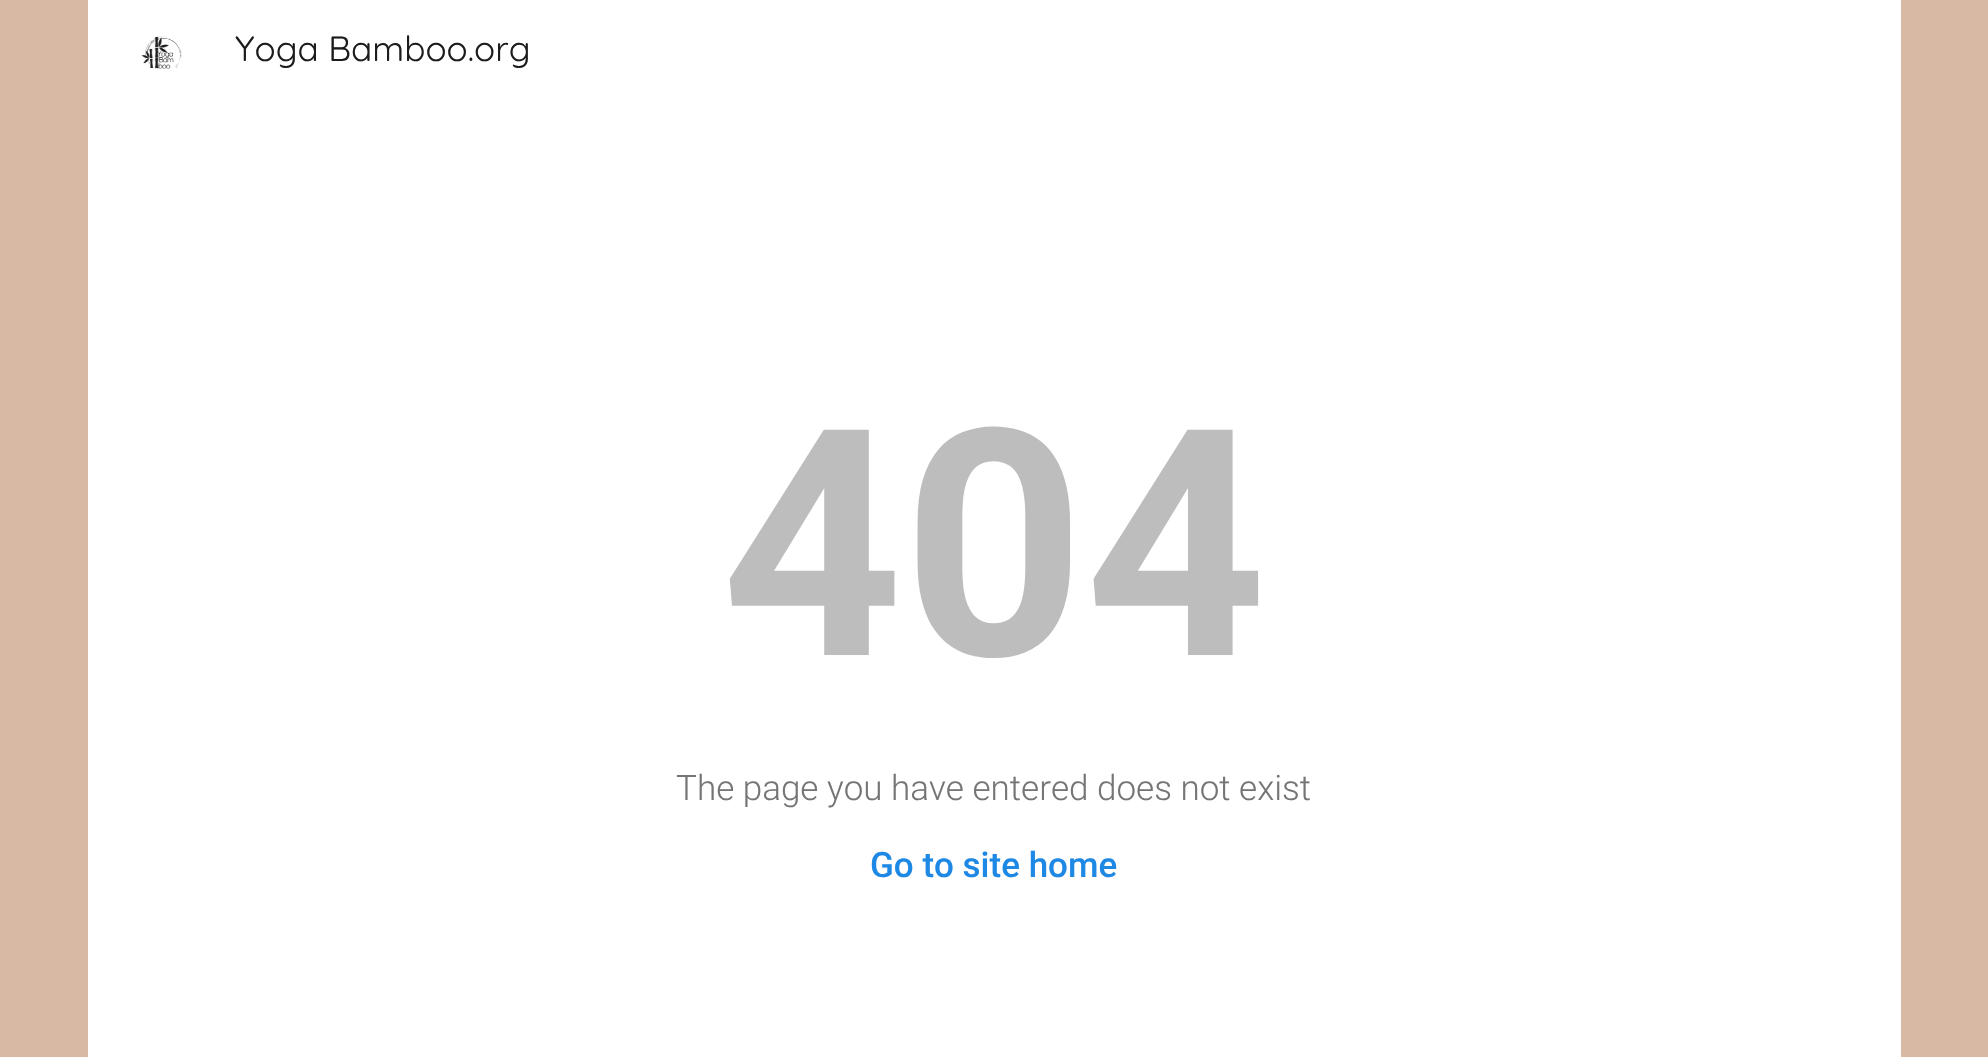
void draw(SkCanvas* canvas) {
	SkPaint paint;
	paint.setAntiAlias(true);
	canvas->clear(0xffd8b9a4);
	paint.setColor(0xffffffff);
	canvas->drawRect(SkRect::MakeXYWH(88, 0, 1813, 1057), paint);
	canvas->drawImageRect(SkImages::DeferredFromEncodedData(SkData::MakeFromFileName("img1.png")), SkRect::MakeXYWH(141, 36, 41, 33), SkSamplingOptions());
	SkFont f1(fontMgr->matchFamilyStyle("Quicksand", SkFontStyle::Normal()), 35);
	f1.setSubpixel(true);
	paint.setColor(0xff1c1c1c);
	canvas->drawString("Yoga Bamboo.org", 235, 61, f1, paint);
	SkFont f2(fontMgr->matchFamilyStyle("Roboto", SkFontStyle::Bold()), 317);
	f2.setSubpixel(true);
	paint.setColor(0xffbdbdbd);
	canvas->drawString("404", 721, 655, f2, paint);
	SkFont f3(fontMgr->matchFamilyStyle("Roboto", SkFontStyle(300, SkFontStyle::kNormal_Width, SkFontStyle::kUpright_Slant)), 35);
	f3.setSubpixel(true);
	paint.setColor(0xff757575);
	canvas->drawString("The page you have entered does not exist", 676, 800, f3, paint);
	SkFont f4(fontMgr->matchFamilyStyle("Roboto", SkFontStyle(500, SkFontStyle::kNormal_Width, SkFontStyle::kUpright_Slant)), 35);
	f4.setSubpixel(true);
	paint.setColor(0xff1e88e5);
	canvas->drawString("Go to site home", 870, 877, f4, paint);
}
